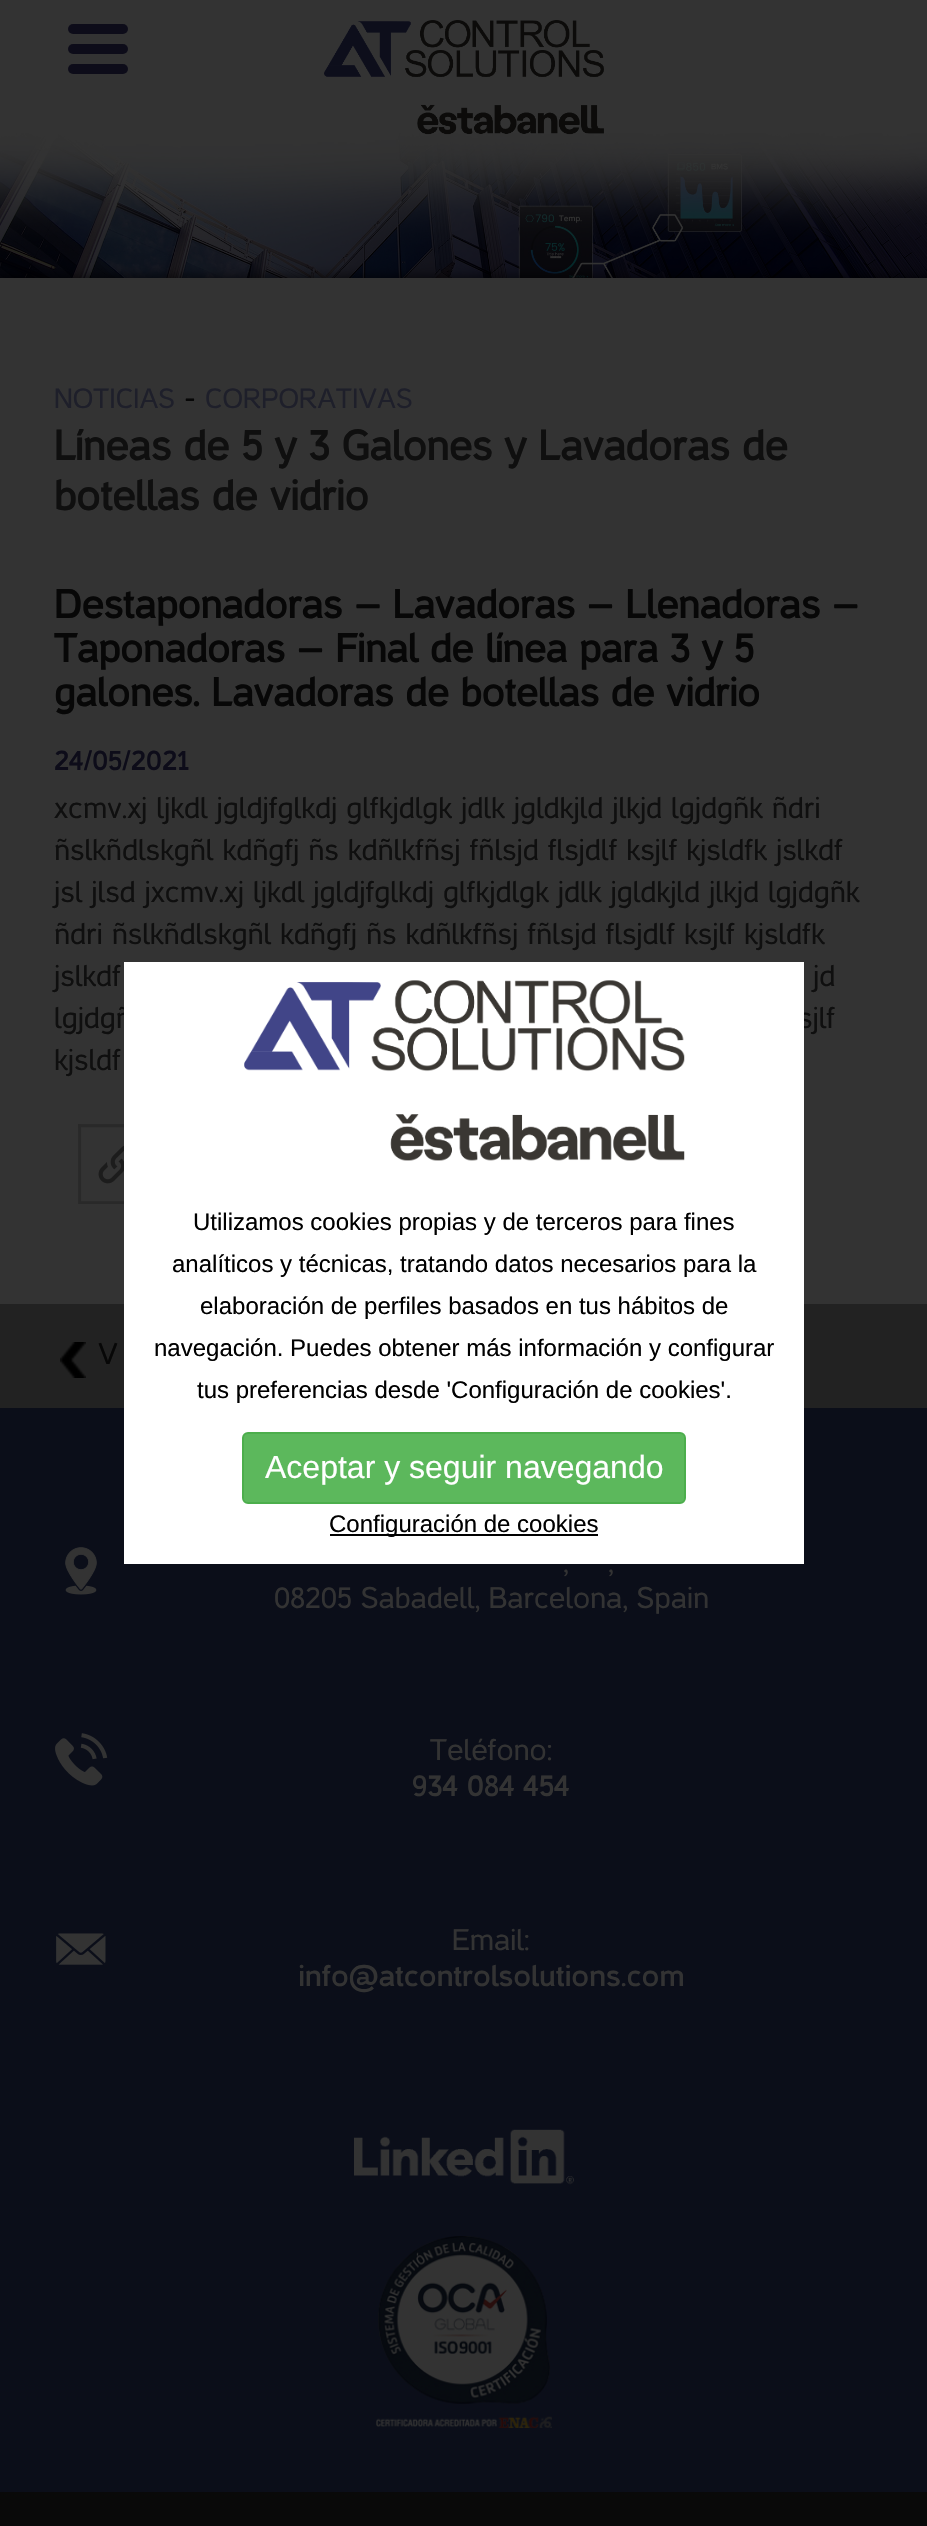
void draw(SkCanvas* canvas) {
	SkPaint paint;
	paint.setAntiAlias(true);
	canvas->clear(0xff333333);
	paint.setColor(0xff0d0c19);
	canvas->drawRoundRect(SkRect::MakeXYWH(68, 24, 60, 10), 5, 5, paint);
	canvas->drawRoundRect(SkRect::MakeXYWH(68, 44, 60, 10), 5, 5, paint);
	canvas->drawRoundRect(SkRect::MakeXYWH(68, 64, 60, 10), 5, 5, paint);
	canvas->drawImageRect(SkImages::DeferredFromEncodedData(SkData::MakeFromFileName("img2.png")), SkRect::MakeXYWH(0, 133, 927, 145), SkSamplingOptions());
	canvas->drawImageRect(SkImages::DeferredFromEncodedData(SkData::MakeFromFileName("img1.png")), SkRect::MakeXYWH(324, 20, 280, 115), SkSamplingOptions());
	SkFont f1(fontMgr->matchFamilyStyle("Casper", SkFontStyle::Normal()), 28);
	f1.setSubpixel(true);
	paint.setColor(0xff1e1f2a);
	canvas->drawString("NOTICIAS", 54, 408, f1, paint);
	SkFont f2(fontMgr->matchFamilyStyle("Casper", SkFontStyle::Normal()), 30);
	f2.setSubpixel(true);
	paint.setColor(0xff070707);
	canvas->drawString("-", 184, 408, f2, paint);
	paint.setColor(0xff1e1f2a);
	canvas->drawString("CORPORATIVAS", 205, 408, f1, paint);
	SkFont f3(fontMgr->matchFamilyStyle("Casper", SkFontStyle::Bold()), 42);
	f3.setSubpixel(true);
	paint.setColor(0xff0f0f0f);
	canvas->drawString("Líneas de 5 y 3 Galones y Lavadoras de", 54, 460, f3, paint);
	canvas->drawString("botellas de vidrio", 54, 510, f3, paint);
	SkFont f4(fontMgr->matchFamilyStyle("Casper", SkFontStyle::Bold()), 40);
	f4.setSubpixel(true);
	paint.setColor(0xff070707);
	canvas->drawString("Destaponadoras – Lavadoras – Llenadoras –", 54, 618, f4, paint);
	canvas->drawString("Taponadoras – Final de línea para 3 y 5", 54, 662, f4, paint);
	canvas->drawString("galones. Lavadoras de botellas de vidrio", 54, 706, f4, paint);
	SkFont f5(fontMgr->matchFamilyStyle("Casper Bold", SkFontStyle::Bold()), 28);
	f5.setSubpixel(true);
	paint.setColor(0xff0d0c19);
	canvas->drawString("24/05/2021", 54, 770, f5, paint);
	paint.setColor(0xff0f0f0f);
	canvas->drawString("xcmv.xj ljkdl jgldjfglkdj glfkjdlgk jdlk jgldkjld jlkjd lgjdgñk ñdri", 54, 818, f2, paint);
	canvas->drawString("ñslkñdlskgñl kdñgfj ñs kdñlkfñsj fñlsjd flsjdlf ksjlf kjsldfk jslkdf", 54, 860, f2, paint);
	canvas->drawString("jsl jlsd jxcmv.xj ljkdl jgldjfglkdj glfkjdlgk jdlk jgldkjld jlkjd lgjdgñk", 54, 902, f2, paint);
	canvas->drawString("ñdri ñslkñdlskgñl kdñgfj ñs kdñlkfñsj fñlsjd flsjdlf ksjlf kjsldfk", 54, 944, f2, paint);
	canvas->drawString("jslkdf", 54, 986, f2, paint);
	canvas->drawString("jd", 813, 986, f2, paint);
	canvas->drawString("lgjdgñ", 54, 1028, f2, paint);
	canvas->drawString("sjlf", 798, 1028, f2, paint);
	canvas->drawString("kjsldf", 54, 1070, f2, paint);
	canvas->drawImageRect(SkImages::DeferredFromEncodedData(SkData::MakeFromFileName("img3.png")), SkRect::MakeXYWH(78, 1124, 46, 80), SkSamplingOptions());
	paint.setColor(0xff222222);
	canvas->drawRect(SkRect::MakeXYWH(0, 1304, 927, 104), paint);
	canvas->drawImageRect(SkImages::DeferredFromEncodedData(SkData::MakeFromFileName("img4.png")), SkRect::MakeXYWH(60, 1342, 26, 36), SkSamplingOptions());
	paint.setColor(0xff070707);
	canvas->drawString("V", 98, 1364, f2, paint);
	paint.setColor(0xff0b0e19);
	canvas->drawRect(SkRect::MakeXYWH(0, 1408, 927, 1084), paint);
	paint.setColor(0xffffffff);
	canvas->drawRect(SkRect::MakeXYWH(124, 962, 680, 602), paint);
	canvas->drawImageRect(SkImages::DeferredFromEncodedData(SkData::MakeFromFileName("img5.png")), SkRect::MakeXYWH(244, 980, 441, 181), SkSamplingOptions());
	SkFont f6(fontMgr->matchFamilyStyle("Liberation Sans", SkFontStyle::Normal()), 24);
	f6.setSubpixel(true);
	paint.setColor(0xff000000);
	canvas->drawString("Utilizamos cookies propias y de terceros para fines", 193, 1230, f6, paint);
	canvas->drawString("analíticos y técnicas, tratando datos necesarios para la", 172, 1272, f6, paint);
	canvas->drawString("elaboración de perfiles basados en tus hábitos de", 200, 1314, f6, paint);
	canvas->drawString("navegación. Puedes obtener más información y configurar", 154, 1356, f6, paint);
	canvas->drawString("tus preferencias desde 'Configuración de cookies'.", 197, 1398, f6, paint);
	paint.setColor(0xff5cb85c);
	canvas->drawRoundRect(SkRect::MakeXYWH(243, 1433, 442, 70), 5, 5, paint);
	paint.setStroke(true);
	paint.setStrokeWidth(2);
	paint.setColor(0xff4cae4c);
	canvas->drawRoundRect(SkRect::MakeXYWH(243, 1433, 442, 70), 5, 5, paint);
	SkFont f7(fontMgr->matchFamilyStyle("Liberation Sans", SkFontStyle::Normal()), 32);
	f7.setSubpixel(true);
	paint.setStroke(false);
	paint.setColor(0xffffffff);
	canvas->drawString("Aceptar y seguir navegando", 265, 1478, f7, paint);
	paint.setColor(0xff000000);
	canvas->drawRect(SkRect::MakeXYWH(330, 1534, 268, 2), paint);
	canvas->drawString("Configuración de cookies", 329, 1532, f6, paint);
	canvas->drawImageRect(SkImages::DeferredFromEncodedData(SkData::MakeFromFileName("img6.png")), SkRect::MakeXYWH(65, 1547, 32, 48), SkSamplingOptions());
	paint.setColor(0xff333333);
	canvas->drawString(",", 563, 1572, f2, paint);
	canvas->drawString(",", 608, 1572, f2, paint);
	canvas->drawString("08205 Sabadell, Barcelona, Spain", 274, 1608, f2, paint);
	canvas->drawImageRect(SkImages::DeferredFromEncodedData(SkData::MakeFromFileName("img7.png")), SkRect::MakeXYWH(55, 1733, 53, 53), SkSamplingOptions());
	canvas->drawString("Teléfono:", 430, 1760, f2, paint);
	SkFont f8(fontMgr->matchFamilyStyle("Casper Bold", SkFontStyle::Bold()), 30);
	f8.setSubpixel(true);
	canvas->drawString("934 084 454", 412, 1796, f8, paint);
	canvas->drawImageRect(SkImages::DeferredFromEncodedData(SkData::MakeFromFileName("img8.png")), SkRect::MakeXYWH(56, 1933, 50, 32), SkSamplingOptions());
	canvas->drawString("Email:", 452, 1950, f2, paint);
	canvas->drawString("info@atcontrolsolutions.com", 298, 1986, f8, paint);
	canvas->drawImageRect(SkImages::DeferredFromEncodedData(SkData::MakeFromFileName("img9.png")), SkRect::MakeXYWH(354, 2129, 220, 56), SkSamplingOptions());
	canvas->drawImageRect(SkImages::DeferredFromEncodedData(SkData::MakeFromFileName("img10.png")), SkRect::MakeXYWH(376, 2236, 176, 192), SkSamplingOptions());
	paint.setColor(0xff090909);
	canvas->drawRect(SkRect::MakeXYWH(0, 2492, 927, 34), paint);
}
